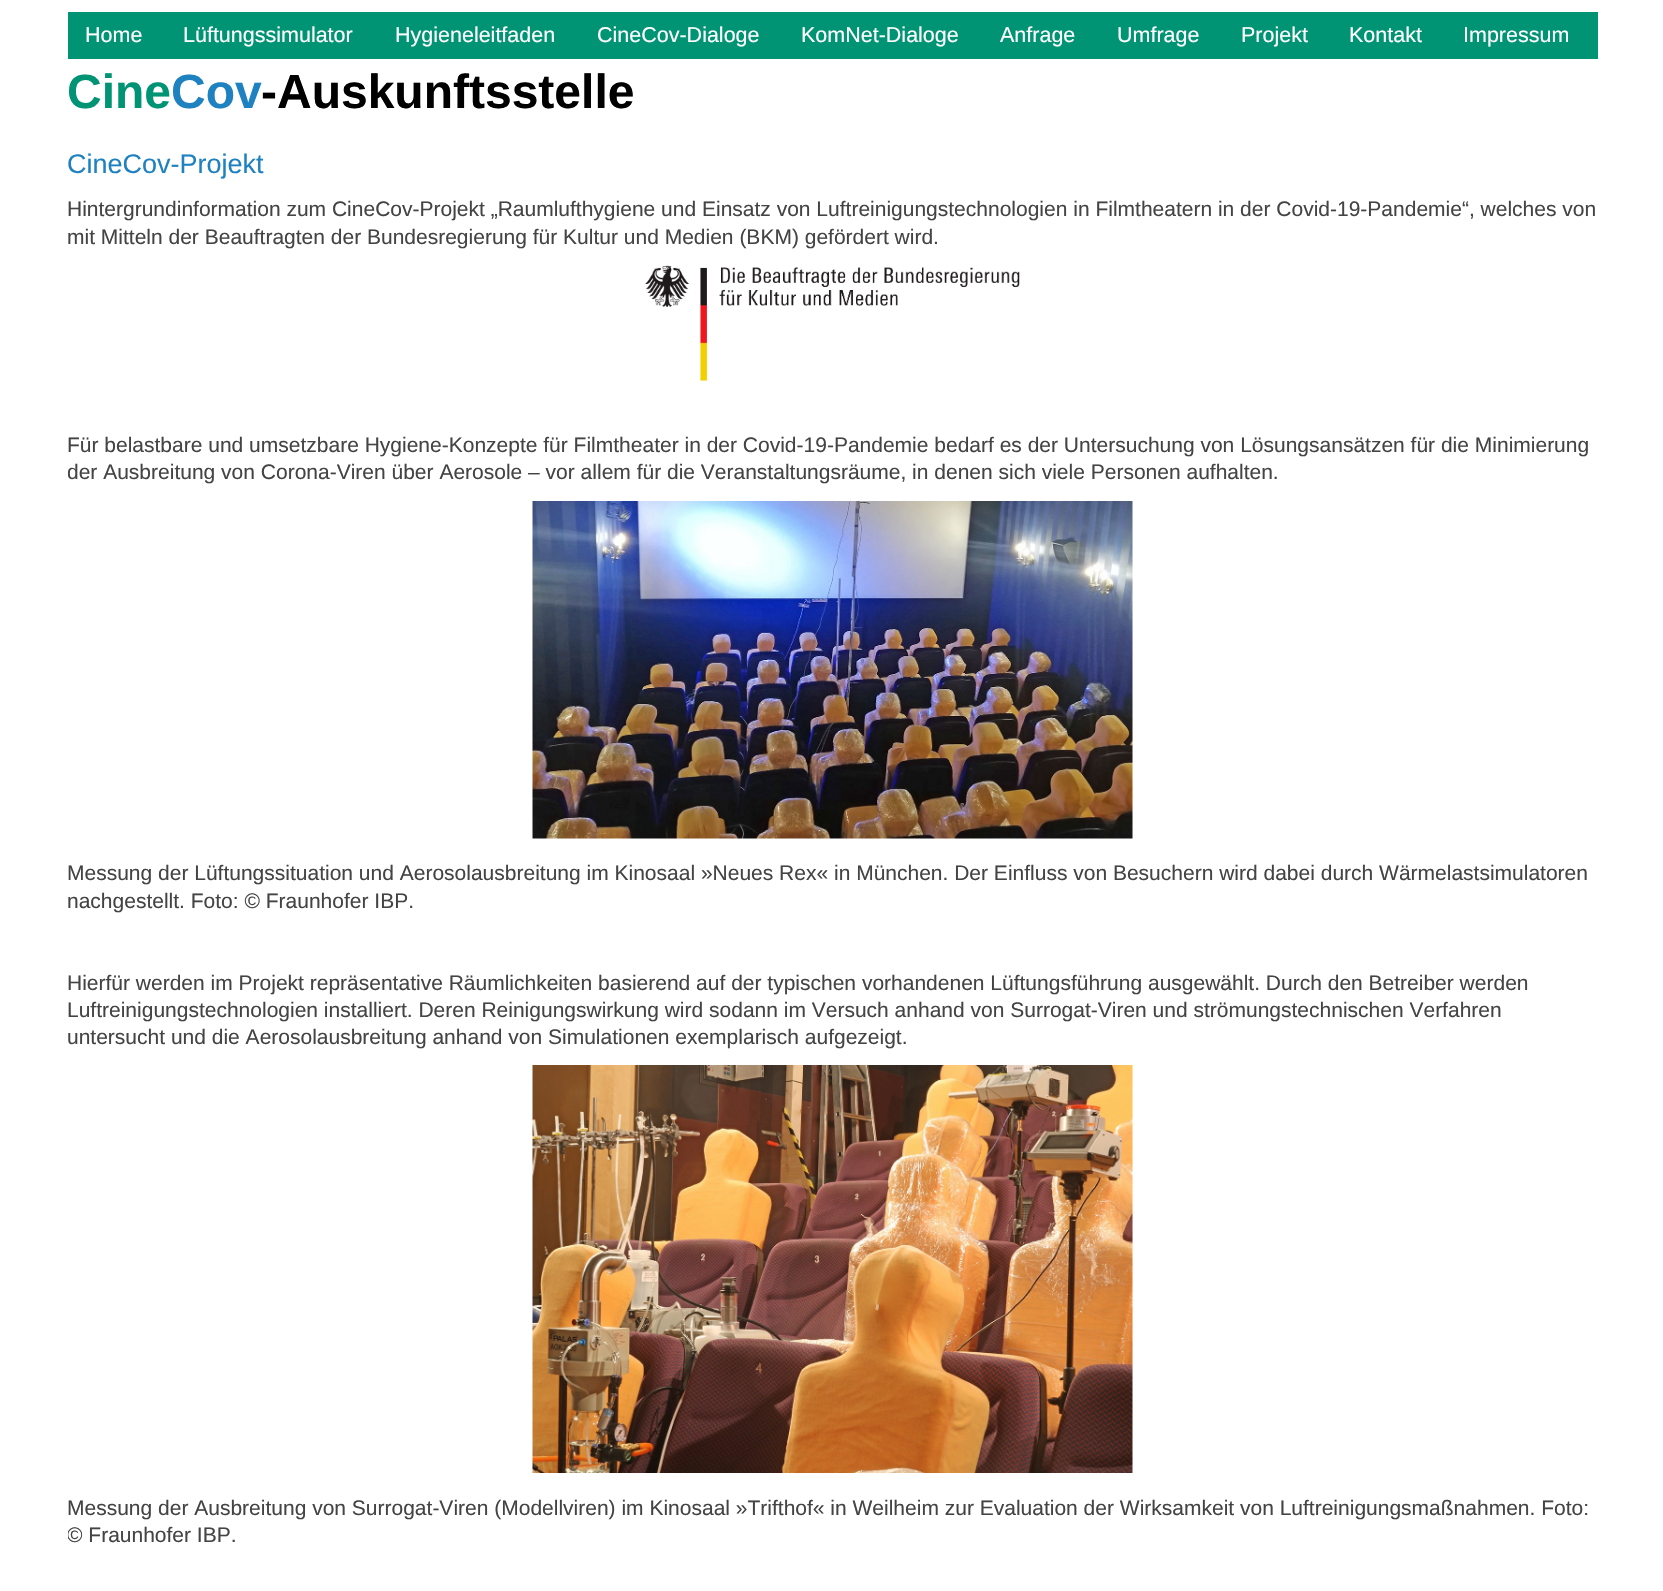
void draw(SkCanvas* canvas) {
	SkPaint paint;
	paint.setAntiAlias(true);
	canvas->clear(0xffffffff);
	paint.setColor(0xff009374);
	canvas->drawRect(SkRect::MakeXYWH(68, 12, 1530, 47), paint);
	SkFont f1(fontMgr->matchFamilyStyle("Liberation Sans", SkFontStyle::Normal()), 21.5);
	f1.setSubpixel(true);
	paint.setColor(0xffffffff);
	canvas->drawString("Home", 85, 42, f1, paint);
	canvas->drawString("Lüftungssimulator", 183, 42, f1, paint);
	canvas->drawString("Hygieneleitfaden", 395, 42, f1, paint);
	canvas->drawString("CineCov-Dialoge", 597, 42, f1, paint);
	canvas->drawString("KomNet-Dialoge", 801, 42, f1, paint);
	canvas->drawString("Anfrage", 1000, 42, f1, paint);
	canvas->drawString("Umfrage", 1117, 42, f1, paint);
	canvas->drawString("Projekt", 1241, 42, f1, paint);
	canvas->drawString("Kontakt", 1349, 42, f1, paint);
	canvas->drawString("Impressum", 1463, 42, f1, paint);
	SkFont f2(fontMgr->matchFamilyStyle("Liberation Sans", SkFontStyle::Bold()), 48);
	f2.setSubpixel(true);
	paint.setColor(0xff009374);
	canvas->drawString("Cine", 67, 108, f2, paint);
	paint.setColor(0xff1f82c0);
	canvas->drawString("Cov", 171, 108, f2, paint);
	paint.setColor(0xff000000);
	canvas->drawString("-Auskunftsstelle", 261, 108, f2, paint);
	SkFont f3(fontMgr->matchFamilyStyle("Liberation Sans", SkFontStyle::Normal()), 27);
	f3.setSubpixel(true);
	paint.setColor(0xff1f82c0);
	canvas->drawString("CineCov-Projekt", 67, 173, f3, paint);
	SkFont f4(fontMgr->matchFamilyStyle("Liberation Sans", SkFontStyle::Normal()), 21);
	f4.setSubpixel(true);
	paint.setColor(0xff444444);
	canvas->drawString("Hintergrundinformation zum CineCov-Projekt „Raumlufthygiene und Einsatz von Luftreinigungstechnologien in Filmtheatern in der Covid-19-Pandemie“, welches von", 67, 216, f4, paint);
	canvas->drawString("mit Mitteln der Beauftragten der Bundesregierung für Kultur und Medien (BKM) gefördert wird.", 67, 244, f4, paint);
	canvas->drawImageRect(SkImages::DeferredFromEncodedData(SkData::MakeFromFileName("img1.png")), SkRect::MakeXYWH(645, 265, 375, 116), SkSamplingOptions());
	canvas->drawString("Für belastbare und umsetzbare Hygiene-Konzepte für Filmtheater in der Covid-19-Pandemie bedarf es der Untersuchung von Lösungsansätzen für die Minimierung", 67, 452, f4, paint);
	canvas->save();
	canvas->clipRect(SkRect::MakeXYWH(68, 12, 1530, 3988));
	canvas->drawString("der Ausbreitung von Corona-Viren über Aerosole – vor allem für die Veranstaltungsräume, in denen sich viele Personen aufhalten.", 67, 479, f4, paint);
	canvas->restore();
	canvas->drawImageRect(SkImages::DeferredFromEncodedData(SkData::MakeFromFileName("img2.png")), SkRect::MakeXYWH(532, 501, 601, 338), SkSamplingOptions());
	canvas->drawString("Messung der Lüftungssituation und Aerosolausbreitung im Kinosaal »Neues Rex« in München. Der Einfluss von Besuchern wird dabei durch Wärmelastsimulatoren", 67, 880, f4, paint);
	canvas->drawString("nachgestellt. Foto: © Fraunhofer IBP.", 67, 908, f4, paint);
	canvas->drawString("Hierfür werden im Projekt repräsentative Räumlichkeiten basierend auf der typischen vorhandenen Lüftungsführung ausgewählt. Durch den Betreiber werden", 67, 990, f4, paint);
	canvas->drawString("Luftreinigungstechnologien installiert. Deren Reinigungswirkung wird sodann im Versuch anhand von Surrogat-Viren und strömungstechnischen Verfahren", 67, 1017, f4, paint);
	canvas->drawString("untersucht und die Aerosolausbreitung anhand von Simulationen exemplarisch aufgezeigt.", 67, 1044, f4, paint);
	canvas->drawImageRect(SkImages::DeferredFromEncodedData(SkData::MakeFromFileName("img3.png")), SkRect::MakeXYWH(532, 1065, 601, 408), SkSamplingOptions());
	canvas->drawString("Messung der Ausbreitung von Surrogat-Viren (Modellviren) im Kinosaal »Trifthof« in Weilheim zur Evaluation der Wirksamkeit von Luftreinigungsmaßnahmen. Foto:", 67, 1515, f4, paint);
	canvas->save();
	canvas->clipRect(SkRect::MakeXYWH(68, 12, 1530, 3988));
	canvas->drawString("© Fraunhofer IBP.", 67, 1542, f4, paint);
	canvas->restore();
}
